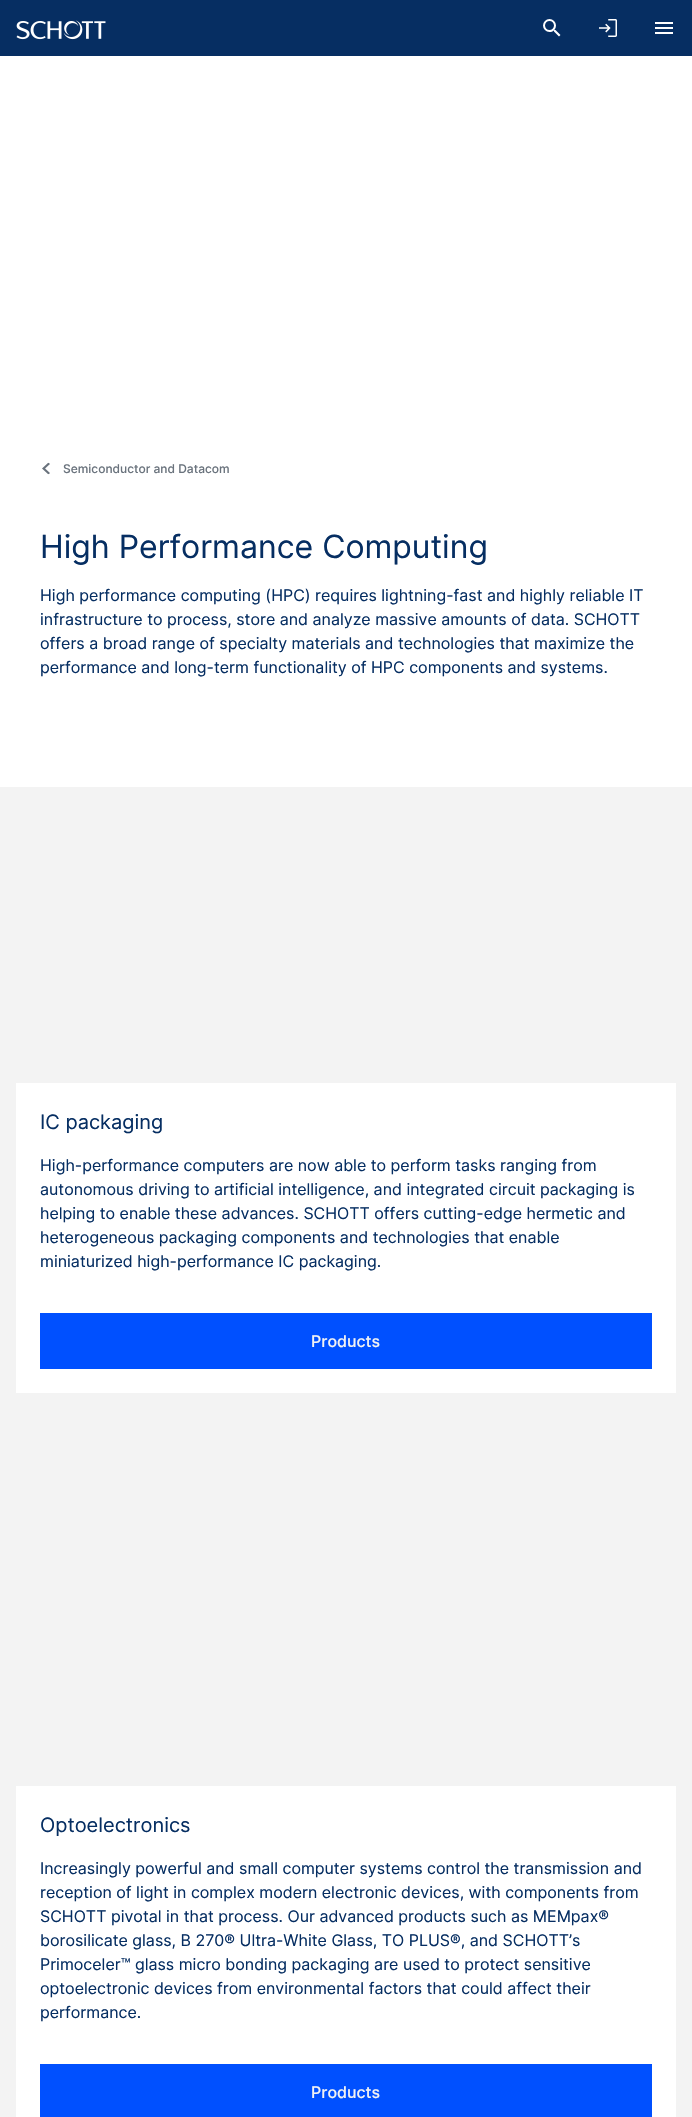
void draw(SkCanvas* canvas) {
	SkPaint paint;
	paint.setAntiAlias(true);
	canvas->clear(0xffffffff);
	paint.setColor(0xff062e62);
	canvas->drawRect(SkRect::MakeXYWH(0, 0, 692, 56), paint);
	canvas->drawImageRect(SkImages::DeferredFromEncodedData(SkData::MakeFromFileName("img1.png")), SkRect::MakeXYWH(16, 20, 90, 20), SkSamplingOptions());
	canvas->drawImageRect(SkImages::DeferredFromEncodedData(SkData::MakeFromFileName("img2.png")), SkRect::MakeXYWH(543, 19, 18, 18), SkSamplingOptions());
	canvas->drawImageRect(SkImages::DeferredFromEncodedData(SkData::MakeFromFileName("img3.png")), SkRect::MakeXYWH(599, 19, 18, 18), SkSamplingOptions());
	canvas->drawImageRect(SkImages::DeferredFromEncodedData(SkData::MakeFromFileName("img4.png")), SkRect::MakeXYWH(655, 22, 18, 12), SkSamplingOptions());
	canvas->drawImageRect(SkImages::DeferredFromEncodedData(SkData::MakeFromFileName("img5.png")), SkRect::MakeXYWH(42, 462, 8, 13), SkSamplingOptions());
	SkFont f1(fontMgr->matchFamilyStyle("Inter", SkFontStyle(500, SkFontStyle::kNormal_Width, SkFontStyle::kUpright_Slant)), 12);
	f1.setSubpixel(true);
	paint.setColor(0xff6a737d);
	canvas->drawString("Semiconductor and Datacom", 63, 473, f1, paint);
	SkFont f2(fontMgr->matchFamilyStyle("Inter", SkFontStyle::Normal()), 32);
	f2.setSubpixel(true);
	paint.setColor(0xff062e62);
	canvas->drawString("High Performance Computing", 40, 558, f2, paint);
	SkFont f3(fontMgr->matchFamilyStyle("Inter", SkFontStyle::Normal()), 16);
	f3.setSubpixel(true);
	canvas->drawString("High performance computing (HPC) requires lightning-fast and highly reliable IT", 40, 601, f3, paint);
	canvas->drawString("infrastructure to process, store and analyze massive amounts of data. SCHOTT", 40, 625, f3, paint);
	canvas->drawString("offers a broad range of specialty materials and technologies that maximize the", 40, 649, f3, paint);
	canvas->drawString("performance and long-term functionality of HPC components and systems.", 40, 673, f3, paint);
	paint.setColor(0xfff3f3f3);
	canvas->drawRect(SkRect::MakeXYWH(0, 787, 692, 1330), paint);
	paint.setColor(0xffffffff);
	canvas->drawRect(SkRect::MakeXYWH(16, 1083, 660, 310), paint);
	SkFont f4(fontMgr->matchFamilyStyle("Inter", SkFontStyle::Normal()), 20);
	f4.setSubpixel(true);
	paint.setColor(0xff062e62);
	canvas->drawString("IC packaging", 40, 1129, f4, paint);
	canvas->drawString("High-performance computers are now able to perform tasks ranging from", 40, 1171, f3, paint);
	canvas->drawString("autonomous driving to artificial intelligence, and integrated circuit packaging is", 40, 1195, f3, paint);
	canvas->drawString("helping to enable these advances. SCHOTT offers cutting-edge hermetic and", 40, 1219, f3, paint);
	canvas->drawString("heterogeneous packaging components and technologies that enable", 40, 1243, f3, paint);
	canvas->drawString("miniaturized high-performance IC packaging.", 40, 1267, f3, paint);
	paint.setColor(0xff0050ff);
	canvas->drawRect(SkRect::MakeXYWH(40, 1313, 612, 56), paint);
	SkFont f5(fontMgr->matchFamilyStyle("Inter", SkFontStyle(500, SkFontStyle::kNormal_Width, SkFontStyle::kUpright_Slant)), 16);
	f5.setSubpixel(true);
	paint.setColor(0xfff3f3f3);
	canvas->drawString("Products", 311, 1347, f5, paint);
	paint.setColor(0xffffffff);
	canvas->drawRect(SkRect::MakeXYWH(16, 1786, 660, 331), paint);
	paint.setColor(0xff062e62);
	canvas->drawString("Optoelectronics", 40, 1832, f4, paint);
	canvas->drawString("Increasingly powerful and small computer systems control the transmission and", 40, 1874, f3, paint);
	canvas->drawString("reception of light in complex modern electronic devices, with components from", 40, 1898, f3, paint);
	canvas->drawString("SCHOTT pivotal in that process. Our advanced products such as MEMpax®", 40, 1922, f3, paint);
	canvas->drawString("borosilicate glass, B 270® Ultra-White Glass, TO PLUS®, and SCHOTT’s", 40, 1946, f3, paint);
	canvas->drawString("Primoceler™ glass micro bonding packaging are used to protect sensitive", 40, 1970, f3, paint);
	canvas->drawString("optoelectronic devices from environmental factors that could affect their", 40, 1994, f3, paint);
	canvas->drawString("performance.", 40, 2018, f3, paint);
	paint.setColor(0xff0050ff);
	canvas->drawRect(SkRect::MakeXYWH(40, 2064, 612, 53), paint);
	paint.setColor(0xfff3f3f3);
	canvas->drawString("Products", 311, 2098, f5, paint);
}
